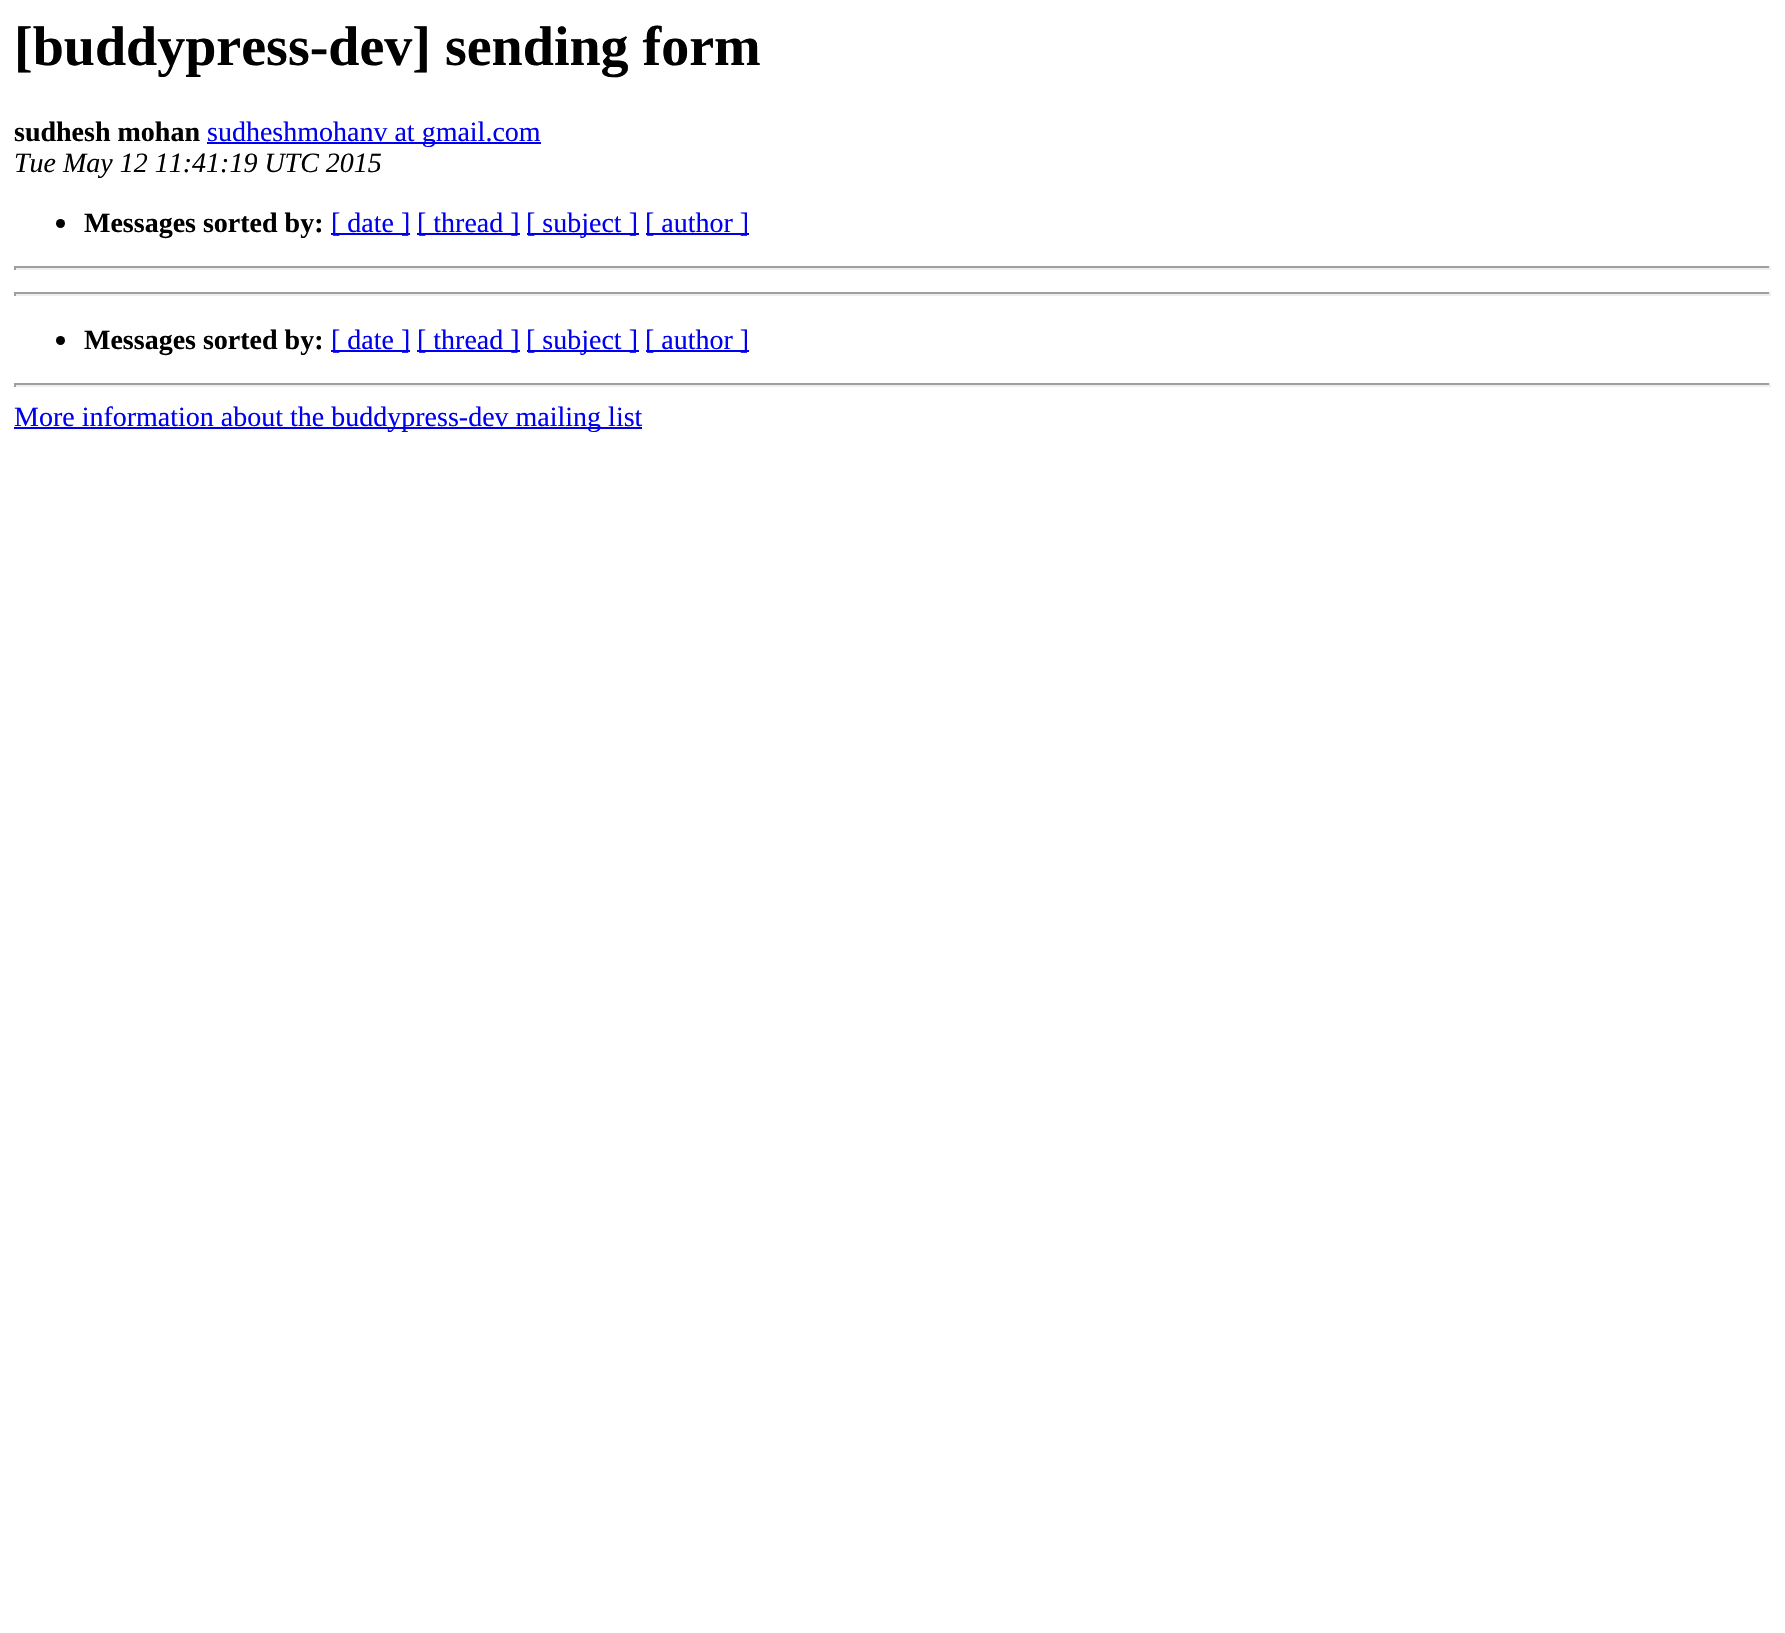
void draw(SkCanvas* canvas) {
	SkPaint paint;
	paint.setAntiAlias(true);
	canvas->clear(0xffffffff);
	SkFont f1(fontMgr->matchFamilyStyle("Liberation Serif", SkFontStyle::Bold()), 56);
	f1.setSubpixel(true);
	paint.setColor(0xff000000);
	canvas->drawString("[buddypress-dev] sending form", 14, 65, f1, paint);
	SkFont f2(fontMgr->matchFamilyStyle("Liberation Serif", SkFontStyle::Bold()), 28);
	f2.setSubpixel(true);
	canvas->drawString("sudhesh mohan", 14, 141, f2, paint);
	paint.setColor(0xff0000ee);
	canvas->drawRect(SkRect::MakeXYWH(207, 142, 334, 2), paint);
	SkFont f3(fontMgr->matchFamilyStyle("Liberation Serif", SkFontStyle::Normal()), 28);
	f3.setSubpixel(true);
	canvas->drawString("sudheshmohanv at gmail.com", 207, 141, f3, paint);
	SkFont f4(fontMgr->matchFamilyStyle("Liberation Serif", SkFontStyle::Italic()), 28);
	f4.setSubpixel(true);
	paint.setColor(0xff000000);
	canvas->drawString("Tue May 12 11:41:19 UTC 2015", 14, 172, f4, paint);
	canvas->drawCircle(60.5, 223.5, 4.5, paint);
	canvas->drawString("Messages sorted by:", 84, 232, f2, paint);
	paint.setColor(0xff0000ee);
	canvas->drawRect(SkRect::MakeXYWH(331, 233, 79, 2), paint);
	canvas->drawString("[ date ]", 331, 232, f3, paint);
	canvas->drawRect(SkRect::MakeXYWH(417, 233, 103, 2), paint);
	canvas->drawString("[ thread ]", 417, 232, f3, paint);
	canvas->drawRect(SkRect::MakeXYWH(527, 233, 112, 2), paint);
	canvas->drawString("[ subject ]", 526, 232, f3, paint);
	canvas->drawRect(SkRect::MakeXYWH(646, 233, 103, 2), paint);
	canvas->drawString("[ author ]", 645, 232, f3, paint);
	paint.setColor(0xff9f9f9f);
	canvas->drawRect(SkRect::MakeXYWH(14, 266, 1757, 2), paint);
	paint.setColor(0xffeeeeee);
	canvas->drawRect(SkRect::MakeXYWH(1769, 266, 2, 4), paint);
	canvas->drawRect(SkRect::MakeXYWH(14, 268, 1757, 2), paint);
	paint.setColor(0xff9f9f9f);
	canvas->drawRect(SkRect::MakeXYWH(14, 266, 2, 4), paint);
	canvas->drawRect(SkRect::MakeXYWH(14, 292, 1757, 2), paint);
	paint.setColor(0xffeeeeee);
	canvas->drawRect(SkRect::MakeXYWH(1769, 292, 2, 4), paint);
	canvas->drawRect(SkRect::MakeXYWH(14, 294, 1757, 2), paint);
	paint.setColor(0xff9f9f9f);
	canvas->drawRect(SkRect::MakeXYWH(14, 292, 2, 4), paint);
	paint.setColor(0xff000000);
	canvas->drawCircle(60.5, 340.5, 4.5, paint);
	canvas->drawString("Messages sorted by:", 84, 349, f2, paint);
	paint.setColor(0xff0000ee);
	canvas->drawRect(SkRect::MakeXYWH(331, 350, 79, 2), paint);
	canvas->drawString("[ date ]", 331, 349, f3, paint);
	canvas->drawRect(SkRect::MakeXYWH(417, 350, 103, 2), paint);
	canvas->drawString("[ thread ]", 417, 349, f3, paint);
	canvas->drawRect(SkRect::MakeXYWH(527, 350, 112, 2), paint);
	canvas->drawString("[ subject ]", 526, 349, f3, paint);
	canvas->drawRect(SkRect::MakeXYWH(646, 350, 103, 2), paint);
	canvas->drawString("[ author ]", 645, 349, f3, paint);
	paint.setColor(0xff9f9f9f);
	canvas->drawRect(SkRect::MakeXYWH(14, 383, 1757, 2), paint);
	paint.setColor(0xffeeeeee);
	canvas->drawRect(SkRect::MakeXYWH(1769, 383, 2, 4), paint);
	canvas->drawRect(SkRect::MakeXYWH(14, 385, 1757, 2), paint);
	paint.setColor(0xff9f9f9f);
	canvas->drawRect(SkRect::MakeXYWH(14, 383, 2, 4), paint);
	paint.setColor(0xff0000ee);
	canvas->drawRect(SkRect::MakeXYWH(14, 427, 628, 2), paint);
	canvas->drawString("More information about the buddypress-dev mailing list", 14, 426, f3, paint);
}
